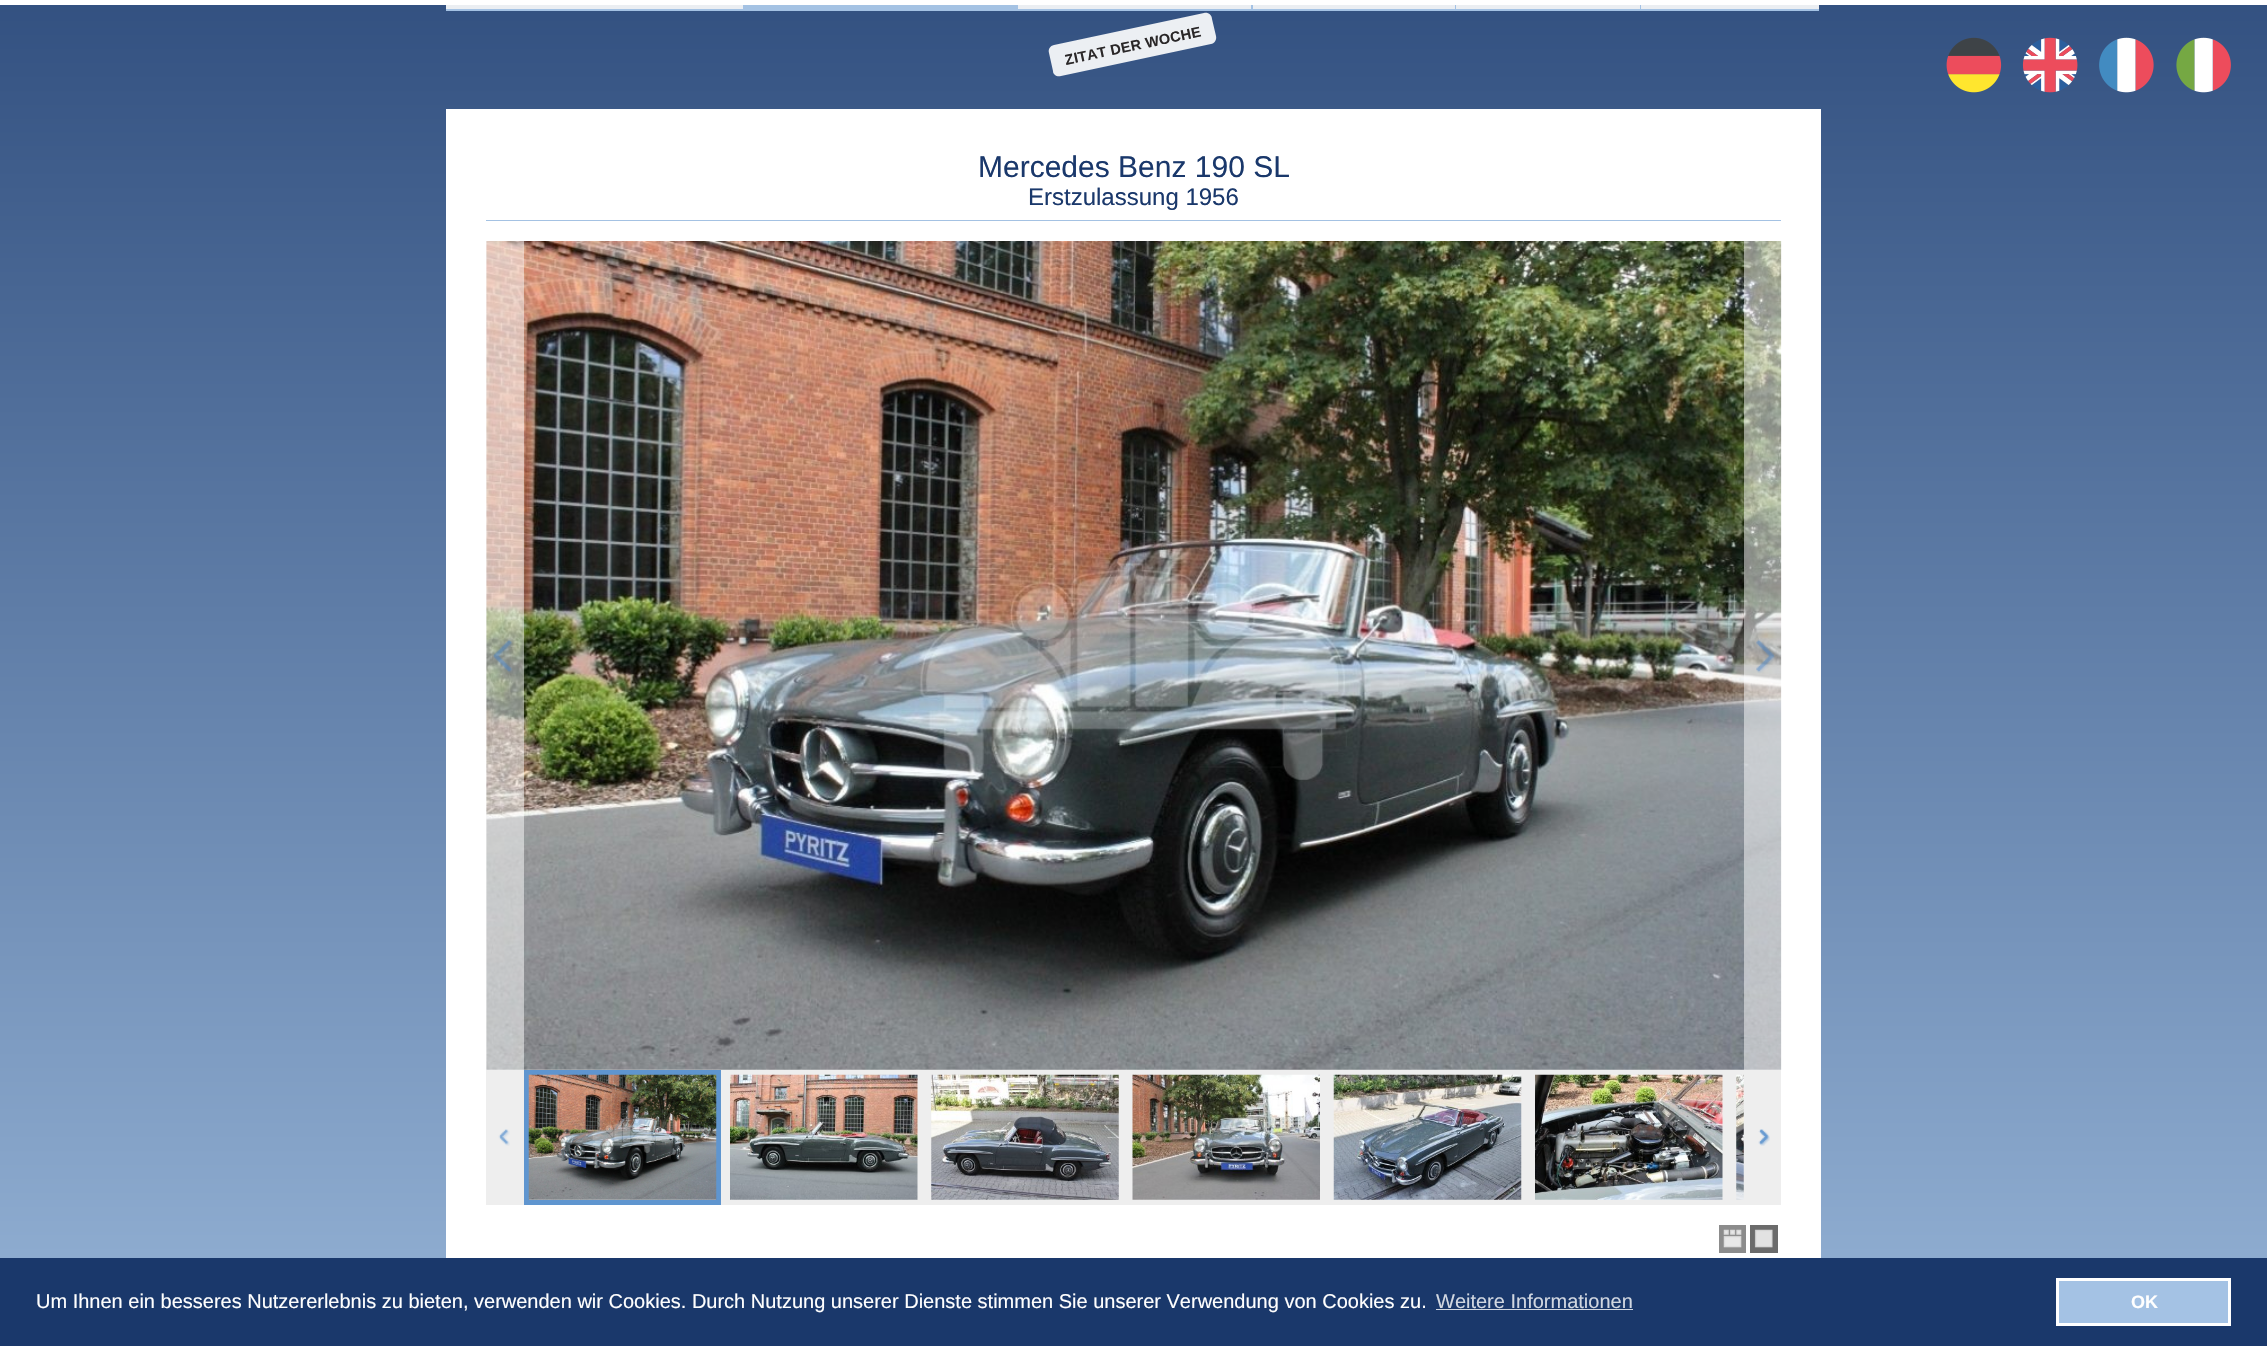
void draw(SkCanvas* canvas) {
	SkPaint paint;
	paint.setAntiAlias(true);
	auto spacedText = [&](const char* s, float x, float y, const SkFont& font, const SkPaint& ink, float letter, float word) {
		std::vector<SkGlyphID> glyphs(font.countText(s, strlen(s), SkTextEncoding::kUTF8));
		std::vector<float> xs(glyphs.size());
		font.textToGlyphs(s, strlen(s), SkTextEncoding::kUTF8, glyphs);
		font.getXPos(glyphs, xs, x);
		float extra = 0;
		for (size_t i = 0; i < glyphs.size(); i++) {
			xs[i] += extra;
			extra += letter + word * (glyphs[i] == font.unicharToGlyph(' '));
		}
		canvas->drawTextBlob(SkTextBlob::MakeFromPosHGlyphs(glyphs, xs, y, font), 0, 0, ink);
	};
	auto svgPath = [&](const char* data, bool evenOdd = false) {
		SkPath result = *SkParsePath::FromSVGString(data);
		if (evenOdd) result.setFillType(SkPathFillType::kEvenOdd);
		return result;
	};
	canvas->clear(0xffffffff);
	{
		const SkColor colors[] = {0xff1a386b, 0xffa4c2e3};
		const float stops[] = {0, 0.6};
		const SkPoint ends[] = {{0, -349}, {0, 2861}};
		paint.setShader(SkGradientShader::MakeLinear(ends, colors, stops, 2, SkTileMode::kClamp));
		paint.setAlpha(255);
	}
	canvas->drawRect(SkRect::MakeXYWH(0, 5, 2267, 1253), paint);
	paint.setShader(nullptr);
	paint.setColor(0xffebeef2);
	canvas->drawRect(SkRect::MakeXYWH(446, 5, 297, 4), paint);
	canvas->save();
	canvas->clipRect(SkRect::MakeXYWH(446, 0, 1373, 78));
	paint.setStroke(true);
	paint.setStrokeWidth(1);
	paint.setColor(0xffa4c2e4);
	canvas->drawRect(SkRect::MakeXYWH(445.5, -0.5, 298, 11), paint);
	canvas->restore();
	paint.setStroke(false);
	paint.setColor(0xffa4c2e3);
	canvas->drawRect(SkRect::MakeXYWH(744, 5, 272, 4), paint);
	paint.setStroke(true);
	paint.setColor(0xffa4c2e4);
	canvas->drawRect(SkRect::MakeXYWH(743.5, -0.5, 274, 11), paint);
	paint.setStroke(false);
	paint.setColor(0xffebeef2);
	canvas->drawRect(SkRect::MakeXYWH(1018, 5, 233, 4), paint);
	paint.setStroke(true);
	paint.setColor(0xffa4c2e4);
	canvas->drawRect(SkRect::MakeXYWH(1016.5, -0.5, 236, 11), paint);
	paint.setStroke(false);
	paint.setColor(0xffebeef2);
	canvas->drawRect(SkRect::MakeXYWH(1253, 5, 202, 4), paint);
	paint.setStroke(true);
	paint.setColor(0xffa4c2e4);
	canvas->drawRect(SkRect::MakeXYWH(1251.5, -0.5, 204, 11), paint);
	paint.setStroke(false);
	paint.setColor(0xffebeef2);
	canvas->drawRect(SkRect::MakeXYWH(1456, 5, 184, 4), paint);
	paint.setStroke(true);
	paint.setColor(0xffa4c2e4);
	canvas->drawRect(SkRect::MakeXYWH(1455.5, -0.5, 185, 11), paint);
	paint.setStroke(false);
	paint.setColor(0xffebeef2);
	canvas->drawRect(SkRect::MakeXYWH(1641, 5, 178, 4), paint);
	canvas->save();
	canvas->clipRect(SkRect::MakeXYWH(446, 0, 1373, 78));
	paint.setStroke(true);
	paint.setColor(0xffa4c2e4);
	canvas->drawRect(SkRect::MakeXYWH(1640.5, -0.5, 179, 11), paint);
	canvas->restore();
	paint.setStroke(false);
	paint.setColor(0xffffffff);
	canvas->drawRect(SkRect::MakeXYWH(743, 0, 898, 5), paint);
	canvas->drawImageRect(SkImages::DeferredFromEncodedData(SkData::MakeFromFileName("img1.png")), SkRect::MakeXYWH(1946, 37, 56, 56), SkSamplingOptions());
	canvas->drawImageRect(SkImages::DeferredFromEncodedData(SkData::MakeFromFileName("img2.png")), SkRect::MakeXYWH(2022, 37, 56, 56), SkSamplingOptions());
	canvas->drawImageRect(SkImages::DeferredFromEncodedData(SkData::MakeFromFileName("img3.png")), SkRect::MakeXYWH(2099, 37, 55, 56), SkSamplingOptions());
	canvas->drawImageRect(SkImages::DeferredFromEncodedData(SkData::MakeFromFileName("img4.png")), SkRect::MakeXYWH(2176, 37, 55, 56), SkSamplingOptions());
	canvas->save();
	canvas->clipRect(SkRect::MakeXYWH(446, 0, 1373, 78));
	paint.setStroke(true);
	paint.setColor(0xffa4c2e4);
	canvas->drawRect(SkRect::MakeXYWH(445.5, 9.5, 1374, 69), paint);
	canvas->restore();
	paint.setStroke(false);
	paint.setColor(0xe6ffffff);
	canvas->drawPath(svgPath("M1054 45L1204 13C1208 12 1212 15 1212 19L1216 36C1217 40 1214 44 1211 44L1061 76C1057 77 1053 75 1053 71L1049 53C1048 49 1050 46 1054 45Z"), paint);
	SkFont f1(fontMgr->matchFamilyStyle("Liberation Sans", SkFontStyle::Bold()), 14.5);
	f1.setSubpixel(true);
	paint.setColor(0xff2a2728);
	canvas->save();
	canvas->rotate(-12, 1066, 65);
	spacedText("ZITAT DER WOCHE", 1066, 65, f1, paint, 0.25, 0);
	canvas->restore();
	paint.setColor(0xffffffff);
	canvas->drawRect(SkRect::MakeXYWH(446, 109, 1375, 1149), paint);
	paint.setColor(0xffa4c2e3);
	canvas->drawRect(SkRect::MakeXYWH(486, 220, 1295, 1), paint);
	SkFont f2(fontMgr->matchFamilyStyle("Liberation Sans", SkFontStyle::Normal()), 30);
	f2.setSubpixel(true);
	paint.setColor(0xff1a386b);
	canvas->drawString("Mercedes Benz 190 SL", 978, 177, f2, paint);
	SkFont f3(fontMgr->matchFamilyStyle("Liberation Sans", SkFontStyle::Normal()), 24);
	f3.setSubpixel(true);
	canvas->drawString("Erstzulassung 1956", 1028, 205, f3, paint);
	paint.setColor(0xffeeeeee);
	canvas->drawRect(SkRect::MakeXYWH(486, 241, 1295, 964), paint);
	canvas->drawImageRect(SkImages::DeferredFromEncodedData(SkData::MakeFromFileName("img5.png")), SkRect::MakeXYWH(486, 241, 1296, 829), SkSamplingOptions());
	paint.setColor(0x80ffffff);
	canvas->drawRect(SkRect::MakeXYWH(486, 241, 38, 829), paint);
	canvas->drawImageRect(SkImages::DeferredFromEncodedData(SkData::MakeFromFileName("img6.png")), SkRect::MakeXYWH(493, 639, 20, 34), SkSamplingOptions());
	canvas->drawRect(SkRect::MakeXYWH(1744, 241, 37, 829), paint);
	canvas->drawImageRect(SkImages::DeferredFromEncodedData(SkData::MakeFromFileName("img7.png")), SkRect::MakeXYWH(1756, 639, 19, 34), SkSamplingOptions());
	paint.setStroke(true);
	paint.setStrokeWidth(5);
	paint.setColor(0xff5f95cf);
	canvas->drawRect(SkRect::MakeXYWH(526.5, 1072.5, 192, 130), paint);
	canvas->drawImageRect(SkImages::DeferredFromEncodedData(SkData::MakeFromFileName("img8.png")), SkRect::MakeXYWH(528, 1074, 189, 126), SkSamplingOptions());
	canvas->drawImageRect(SkImages::DeferredFromEncodedData(SkData::MakeFromFileName("img9.png")), SkRect::MakeXYWH(730, 1074, 188, 126), SkSamplingOptions());
	canvas->drawImageRect(SkImages::DeferredFromEncodedData(SkData::MakeFromFileName("img10.png")), SkRect::MakeXYWH(931, 1074, 188, 126), SkSamplingOptions());
	canvas->drawImageRect(SkImages::DeferredFromEncodedData(SkData::MakeFromFileName("img11.png")), SkRect::MakeXYWH(1132, 1074, 188, 126), SkSamplingOptions());
	canvas->drawImageRect(SkImages::DeferredFromEncodedData(SkData::MakeFromFileName("img12.png")), SkRect::MakeXYWH(1333, 1074, 189, 126), SkSamplingOptions());
	canvas->drawImageRect(SkImages::DeferredFromEncodedData(SkData::MakeFromFileName("img13.png")), SkRect::MakeXYWH(1535, 1074, 188, 126), SkSamplingOptions());
	canvas->drawImageRect(SkImages::DeferredFromEncodedData(SkData::MakeFromFileName("img14.png")), SkRect::MakeXYWH(1736, 1074, 8, 126), SkSamplingOptions());
	canvas->drawImageRect(SkImages::DeferredFromEncodedData(SkData::MakeFromFileName("img15.png")), SkRect::MakeXYWH(498, 1129, 12, 17), SkSamplingOptions());
	canvas->drawImageRect(SkImages::DeferredFromEncodedData(SkData::MakeFromFileName("img16.png")), SkRect::MakeXYWH(1758, 1129, 12, 17), SkSamplingOptions());
	canvas->drawImageRect(SkImages::DeferredFromEncodedData(SkData::MakeFromFileName("img17.png")), SkRect::MakeXYWH(1758, 1129, 12, 17), SkSamplingOptions());
	paint.setStroke(false);
	paint.setColor(0xff8c8c8c);
	canvas->drawRect(SkRect::MakeXYWH(1723, 1229, 19, 20), paint);
	canvas->drawImageRect(SkImages::DeferredFromEncodedData(SkData::MakeFromFileName("img18.png")), SkRect::MakeXYWH(1723, 1229, 19, 19), SkSamplingOptions());
	paint.setStroke(true);
	paint.setStrokeWidth(4);
	canvas->drawRect(SkRect::MakeXYWH(1721, 1227, 23, 24), paint);
	paint.setStroke(false);
	paint.setColor(0xff6b6b6b);
	canvas->drawRect(SkRect::MakeXYWH(1754, 1229, 20, 20), paint);
	canvas->drawImageRect(SkImages::DeferredFromEncodedData(SkData::MakeFromFileName("img19.png")), SkRect::MakeXYWH(1754, 1229, 19, 19), SkSamplingOptions());
	paint.setStroke(true);
	canvas->drawRect(SkRect::MakeXYWH(1752, 1227, 24, 24), paint);
	paint.setStroke(false);
	paint.setColor(0xff1a386b);
	canvas->drawRect(SkRect::MakeXYWH(0, 1258, 2267, 88), paint);
	SkFont f4(fontMgr->matchFamilyStyle("Liberation Sans", SkFontStyle::Normal()), 20);
	f4.setSubpixel(true);
	paint.setColor(0xffffffff);
	canvas->drawString("Um Ihnen ein besseres Nutzererlebnis zu bieten, verwenden wir Cookies. Durch Nutzung unserer Dienste stimmen Sie unserer Verwendung von Cookies zu.", 36, 1308, f4, paint);
	paint.setColor(0xffd1d7e1);
	canvas->drawString("Weitere Informationen", 1436, 1308, f4, paint);
	canvas->drawRect(SkRect::MakeXYWH(1436, 1309, 197, 1), paint);
	paint.setColor(0xffa4c2e4);
	canvas->drawRect(SkRect::MakeXYWH(2057.5, 1279.5, 172, 45), paint);
	paint.setStroke(true);
	paint.setStrokeWidth(3);
	paint.setColor(0xffffffff);
	canvas->drawRect(SkRect::MakeXYWH(2057.5, 1279.5, 172, 45), paint);
	SkFont f5(fontMgr->matchFamilyStyle("Liberation Sans", SkFontStyle::Bold()), 18);
	f5.setSubpixel(true);
	paint.setStroke(false);
	canvas->drawString("OK", 2131, 1308, f5, paint);
}
